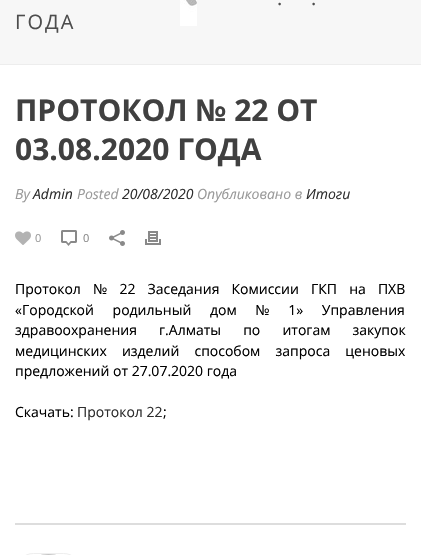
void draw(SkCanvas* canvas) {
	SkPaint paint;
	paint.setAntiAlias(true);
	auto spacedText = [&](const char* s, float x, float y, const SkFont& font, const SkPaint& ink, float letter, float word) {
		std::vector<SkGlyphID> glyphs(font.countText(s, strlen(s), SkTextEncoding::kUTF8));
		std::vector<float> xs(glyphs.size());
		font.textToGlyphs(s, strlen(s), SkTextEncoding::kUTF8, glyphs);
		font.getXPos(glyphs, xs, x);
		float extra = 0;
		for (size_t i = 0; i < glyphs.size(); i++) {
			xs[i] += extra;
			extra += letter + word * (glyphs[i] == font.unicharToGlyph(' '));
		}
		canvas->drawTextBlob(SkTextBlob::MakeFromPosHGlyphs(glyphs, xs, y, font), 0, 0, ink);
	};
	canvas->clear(0xfff7f7f7);
	paint.setColor(0xffededed);
	canvas->drawRect(SkRect::MakeXYWH(0, 64, 421, 1), paint);
	canvas->drawImageRect(SkImages::DeferredFromEncodedData(SkData::MakeFromFileName("img1.png")), SkRect::MakeXYWH(180, 0, 17, 26), SkSamplingOptions());
	SkFont f1(fontMgr->matchFamilyStyle("Open Sans", SkFontStyle::Normal()), 20);
	f1.setSubpixel(true);
	paint.setColor(0xff4d4d4d);
	spacedText(".", 277, 5, f1, paint, 2, 0);
	spacedText(".", 311, 5, f1, paint, 2, 0);
	spacedText("ГОДА", 15, 29, f1, paint, 2, 0);
	paint.setColor(0xffffffff);
	canvas->drawRect(SkRect::MakeXYWH(0, 65, 421, 490), paint);
	SkFont f2(fontMgr->matchFamilyStyle("Open Sans", SkFontStyle::Bold()), 30);
	f2.setSubpixel(true);
	paint.setColor(0xff404040);
	canvas->drawString("ПРОТОКОЛ № 22 ОТ", 15, 121, f2, paint);
	canvas->drawString("03.08.2020 ГОДА", 15, 160, f2, paint);
	SkFont f3(fontMgr->matchFamilyStyle("Open Sans", SkFontStyle::Italic()), 14);
	f3.setSubpixel(true);
	paint.setColor(0xff999999);
	canvas->drawString("By", 15, 199, f3, paint);
	paint.setColor(0xff2e2e2e);
	canvas->drawString("Admin", 33, 199, f3, paint);
	paint.setColor(0xff999999);
	canvas->drawString("Posted", 77, 199, f3, paint);
	paint.setColor(0xff2e2e2e);
	canvas->drawString("20/08/2020", 122, 199, f3, paint);
	paint.setColor(0xff999999);
	canvas->drawString("Опубликовано в", 197, 199, f3, paint);
	paint.setColor(0xff2e2e2e);
	canvas->drawString("Итоги", 306, 199, f3, paint);
	canvas->drawImageRect(SkImages::DeferredFromEncodedData(SkData::MakeFromFileName("img2.png")), SkRect::MakeXYWH(15, 231, 16, 14), SkSamplingOptions());
	SkFont f4(fontMgr->matchFamilyStyle("Open Sans", SkFontStyle::Normal()), 11);
	f4.setSubpixel(true);
	paint.setColor(0xff999999);
	canvas->drawString("0", 35, 242, f4, paint);
	canvas->drawImageRect(SkImages::DeferredFromEncodedData(SkData::MakeFromFileName("img3.png")), SkRect::MakeXYWH(61, 230, 16, 16), SkSamplingOptions());
	paint.setColor(0xff898989);
	canvas->drawString("0", 83, 242, f4, paint);
	canvas->drawImageRect(SkImages::DeferredFromEncodedData(SkData::MakeFromFileName("img4.png")), SkRect::MakeXYWH(109, 230, 16, 16), SkSamplingOptions());
	canvas->drawImageRect(SkImages::DeferredFromEncodedData(SkData::MakeFromFileName("img5.png")), SkRect::MakeXYWH(145, 231, 16, 14), SkSamplingOptions());
	SkFont f5(fontMgr->matchFamilyStyle("Open Sans", SkFontStyle::Normal()), 14);
	f5.setSubpixel(true);
	paint.setColor(0xff000000);
	spacedText("Протокол № 22 Заседания Комиссии ГКП на ПХВ", 15, 294, f5, paint, 0, 8.5);
	spacedText("«Городской родильный дом № 1» Управления", 15, 315, f5, paint, 0, 15);
	spacedText("здравоохранения г.Алматы по итогам закупок", 15, 335, f5, paint, 0, 18.5);
	spacedText("медицинских изделий способом запроса ценовых", 15, 356, f5, paint, 0, 11.5);
	canvas->drawString("предложений от 27.07.2020 года", 15, 376, f5, paint);
	canvas->drawString("Скачать:", 15, 417, f5, paint);
	paint.setColor(0xff2e2e2e);
	canvas->drawString("Протокол 22", 77, 417, f5, paint);
	paint.setColor(0xff000000);
	canvas->drawString(";", 163, 417, f5, paint);
	paint.setColor(0xffdddddd);
	canvas->drawRect(SkRect::MakeXYWH(15, 523, 391, 2), paint);
	paint.setStroke(true);
	paint.setStrokeWidth(1);
	paint.setColor(0xffeeeeee);
	canvas->drawRoundRect(SkRect::MakeXYWH(15.5, 553.5, 66, 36), 33, 33, paint);
	canvas->drawImageRect(SkImages::DeferredFromEncodedData(SkData::MakeFromFileName("img6.png")), SkRect::MakeXYWH(41, 554, 15, 1), SkSamplingOptions());
}
